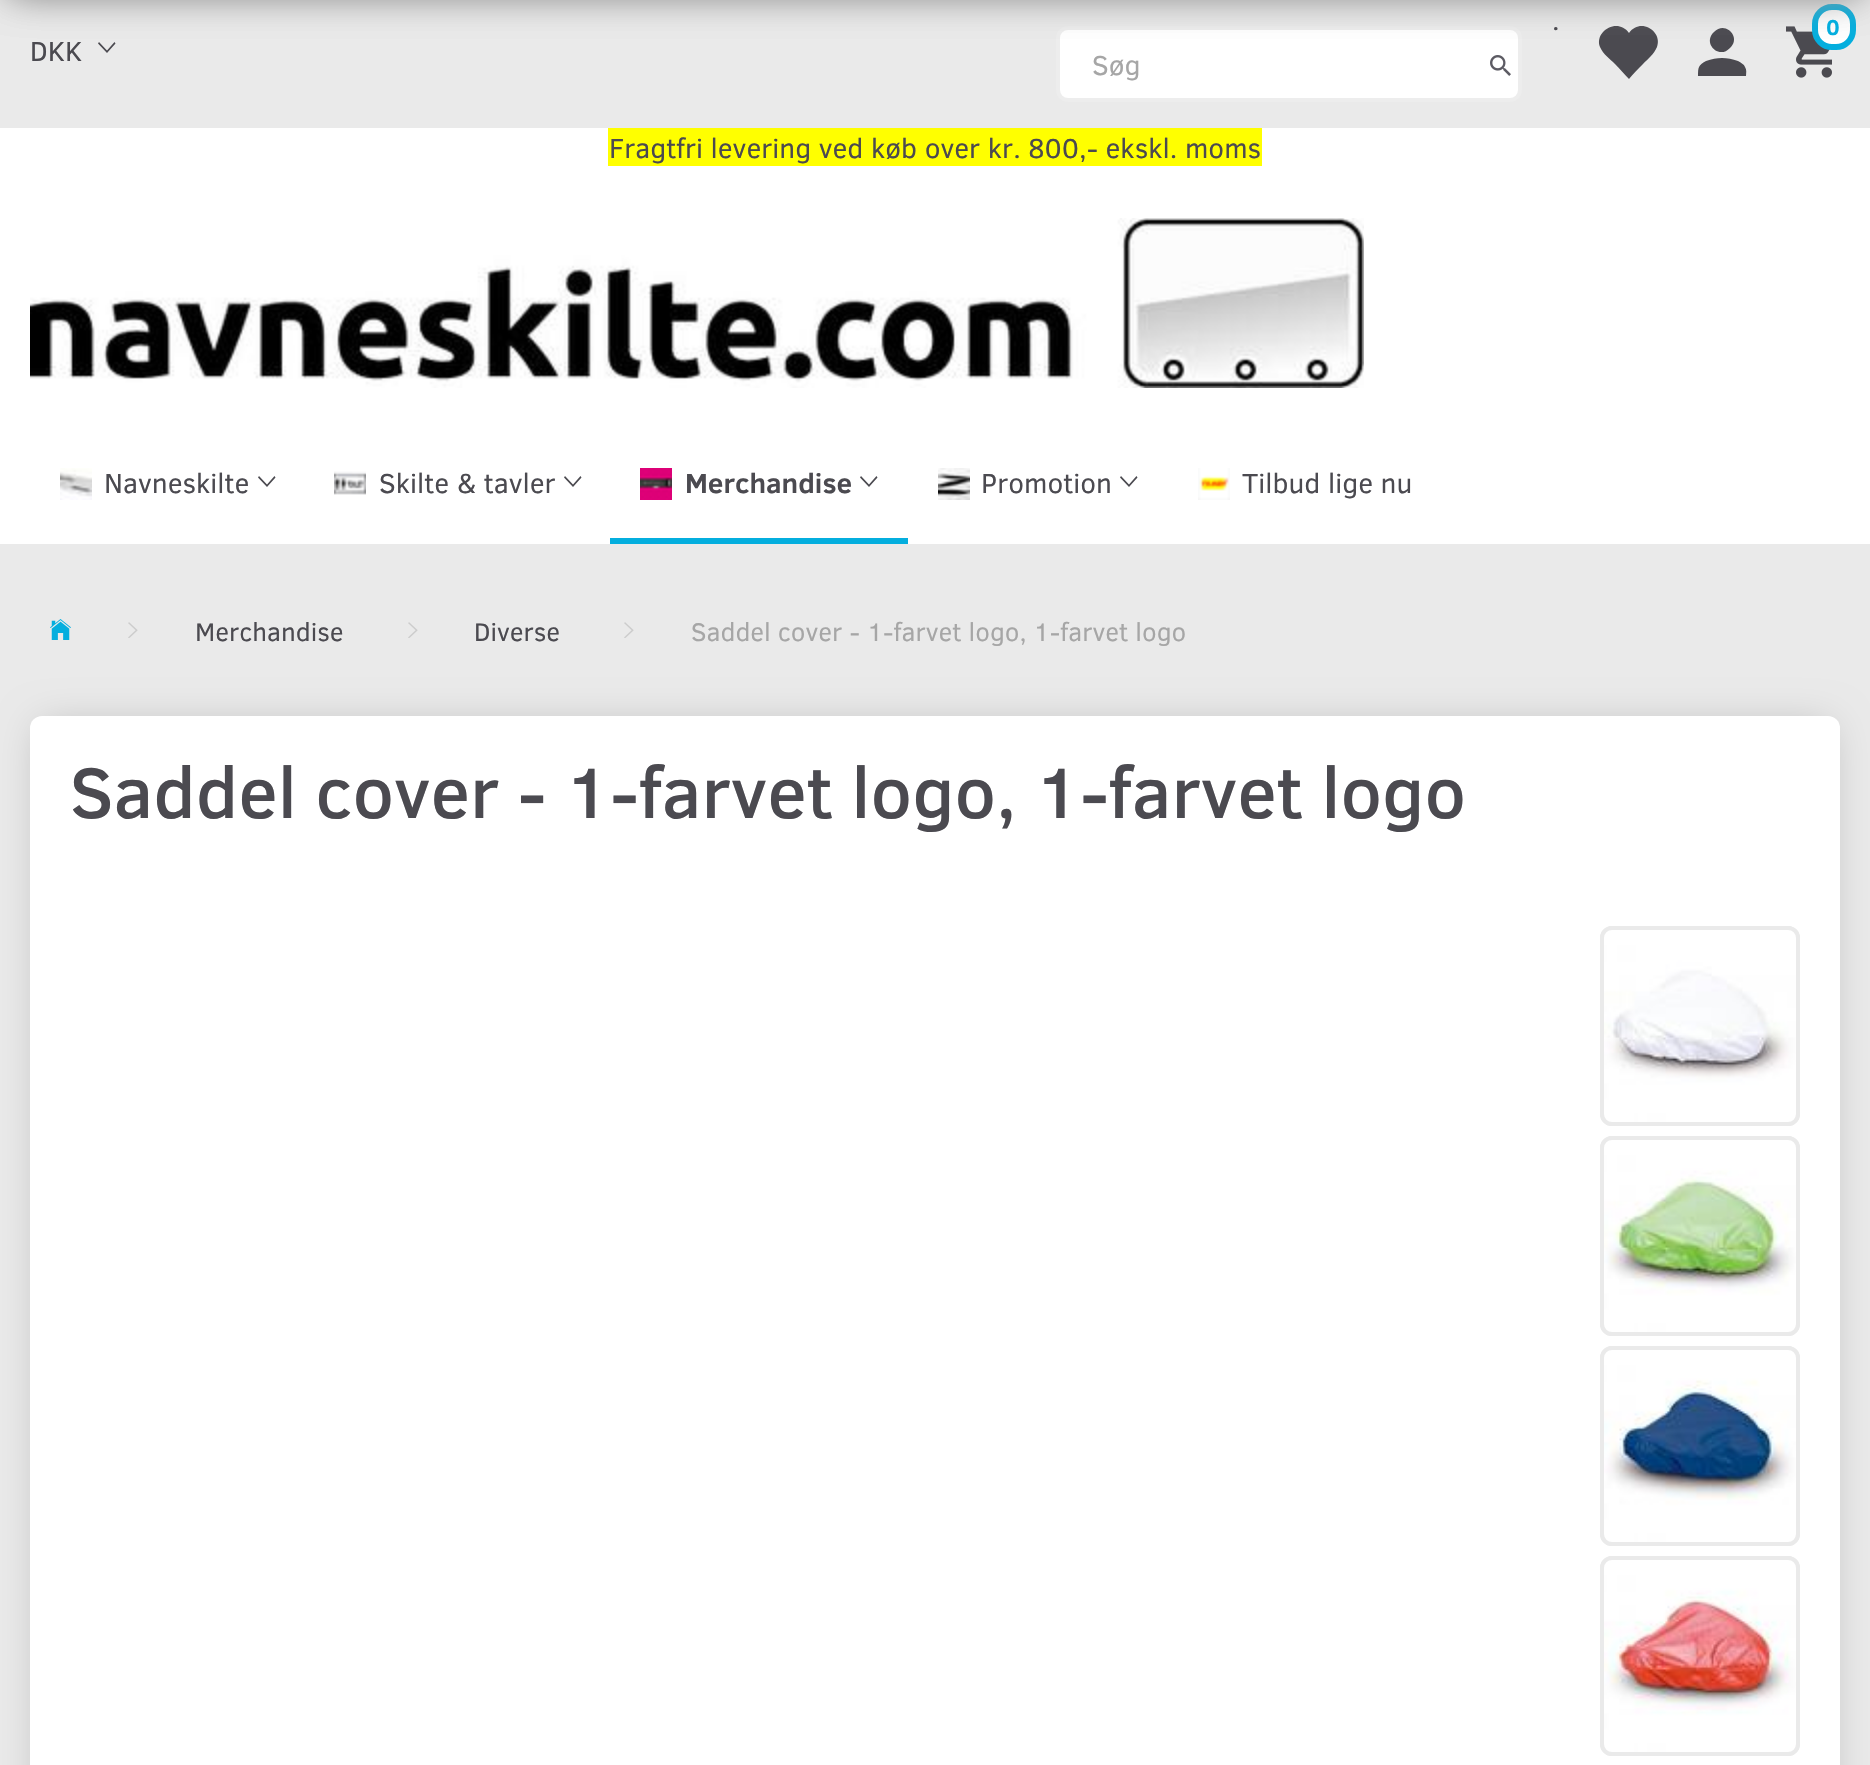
void draw(SkCanvas* canvas) {
	SkPaint paint;
	paint.setAntiAlias(true);
	auto svgPath = [&](const char* data, bool evenOdd = false) {
		SkPath result = *SkParsePath::FromSVGString(data);
		if (evenOdd) result.setFillType(SkPathFillType::kEvenOdd);
		return result;
	};
	canvas->clear(0xffeaeaea);
	paint.setColor(0xff4b4a50);
	canvas->drawPath(svgPath("M1629 33C1640 17 1663 31 1657 47C1654 54 1648 59 1643 64C1638 69 1633 74 1629 79C1624 74 1620 69 1615 64C1610 59 1603 54 1600 47C1594 31 1618 17 1629 33Z"), paint);
	canvas->drawPath(svgPath("M1730 48C1719 60 1702 43 1714 32C1725 20 1742 37 1730 48ZM1706 61C1717 57 1727 57 1738 61C1741 63 1744 64 1745 67C1747 70 1746 73 1746 76H1698C1698 68 1698 65 1706 61Z"), paint);
	canvas->drawImageRect(SkImages::DeferredFromEncodedData(SkData::MakeFromFileName("img1.png")), SkRect::MakeXYWH(1786, 26, 46, 52), SkSamplingOptions());
	paint.setColor(0xffffffff);
	canvas->drawRoundRect(SkRect::MakeXYWH(1815, 7, 38, 40), 17, 17, paint);
	paint.setStroke(true);
	paint.setStrokeWidth(6);
	paint.setColor(0xff04aede);
	canvas->drawRoundRect(SkRect::MakeXYWH(1815, 7, 38, 40), 17, 17, paint);
	paint.setStroke(false);
	paint.setColor(0xff4b4a50);
	canvas->drawPath(svgPath("M114.5 42L115.5 43.5L107 53L98 43.5L99 42L107 50.5Z"), paint);
	paint.setColor(0xffffffff);
	canvas->drawRoundRect(SkRect::MakeXYWH(1058, 28, 462, 72), 10, 10, paint);
	paint.setStroke(true);
	paint.setStrokeWidth(4);
	paint.setColor(0xffededed);
	canvas->drawRoundRect(SkRect::MakeXYWH(1058, 28, 462, 72), 10, 10, paint);
	paint.setStroke(false);
	paint.setColor(0xff949494);
	paint.setMaskFilter(SkMaskFilter::MakeBlur(kNormal_SkBlurStyle, 20));
	canvas->drawRect(SkRect::MakeXYWH(10, -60, 1850, 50), paint);
	paint.setMaskFilter(nullptr);
	paint.setMaskFilter(SkMaskFilter::MakeBlur(kNormal_SkBlurStyle, 20));
	canvas->drawRect(SkRect::MakeXYWH(10, -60, 1850, 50), paint);
	paint.setMaskFilter(nullptr);
	paint.setColor(0xffffffff);
	canvas->drawRect(SkRect::MakeXYWH(0, 128, 1870, 416), paint);
	SkFont f1(fontMgr->matchFamilyStyle("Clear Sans", SkFontStyle::Normal()), 28);
	f1.setSubpixel(true);
	paint.setColor(0xff4b4a50);
	canvas->drawString(".", 1552, 30, f1, paint);
	SkFont f2(fontMgr->matchFamilyStyle("Clear Sans", SkFontStyle::Bold()), 22);
	f2.setSubpixel(true);
	paint.setColor(0xff04aede);
	canvas->drawString("0", 1826, 35, f2, paint);
	paint.setColor(0xff4b4a50);
	canvas->drawString("DKK", 30, 61, f1, paint);
	paint.setColor(0xffa6a6a6);
	canvas->drawString("Søg", 1092, 75, f1, paint);
	canvas->drawImageRect(SkImages::DeferredFromEncodedData(SkData::MakeFromFileName("img2.png")), SkRect::MakeXYWH(1490, 55, 21, 21), SkSamplingOptions());
	paint.setColor(0xffffff00);
	canvas->drawRect(SkRect::MakeXYWH(608, 128, 654, 38), paint);
	paint.setColor(0xff4b4a50);
	canvas->drawString("Fragtfri levering ved køb over kr. 800,- ekskl. moms", 609, 158, f1, paint);
	canvas->drawImageRect(SkImages::DeferredFromEncodedData(SkData::MakeFromFileName("img3.png")), SkRect::MakeXYWH(30, 218, 1334, 170), SkSamplingOptions());
	canvas->drawImageRect(SkImages::DeferredFromEncodedData(SkData::MakeFromFileName("img4.png")), SkRect::MakeXYWH(60, 468, 32, 32), SkSamplingOptions());
	canvas->drawString("Navneskilte", 104, 493, f1, paint);
	canvas->drawPath(svgPath("M274.5 476L275.5 477.5L267 487L258 477.5L259 476L267 484.5Z"), paint);
	canvas->drawImageRect(SkImages::DeferredFromEncodedData(SkData::MakeFromFileName("img5.png")), SkRect::MakeXYWH(334, 471, 32, 24), SkSamplingOptions());
	canvas->drawString("Skilte & tavler", 379, 493, f1, paint);
	canvas->drawPath(svgPath("M580.5 476L581.5 477.5L573 487L564 477.5L565 476L573 484.5Z"), paint);
	paint.setColor(0xff04aede);
	canvas->drawRect(SkRect::MakeXYWH(610, 538, 298, 6), paint);
	canvas->drawImageRect(SkImages::DeferredFromEncodedData(SkData::MakeFromFileName("img6.png")), SkRect::MakeXYWH(640, 468, 32, 32), SkSamplingOptions());
	SkFont f3(fontMgr->matchFamilyStyle("Clear Sans", SkFontStyle::Bold()), 28);
	f3.setSubpixel(true);
	paint.setColor(0xff4b4a50);
	canvas->drawString("Merchandise", 685, 493, f3, paint);
	canvas->drawPath(svgPath("M876.5 476L877.5 477.5L869 487L860 477.5L861 476L869 484.5Z"), paint);
	canvas->drawImageRect(SkImages::DeferredFromEncodedData(SkData::MakeFromFileName("img7.png")), SkRect::MakeXYWH(938, 468, 32, 32), SkSamplingOptions());
	canvas->drawString("Promotion", 981, 493, f1, paint);
	canvas->drawPath(svgPath("M1136.5 476L1137.5 477.5L1129 487L1120 477.5L1121 476L1129 484.5Z"), paint);
	canvas->drawImageRect(SkImages::DeferredFromEncodedData(SkData::MakeFromFileName("img8.png")), SkRect::MakeXYWH(1198, 468, 32, 32), SkSamplingOptions());
	canvas->drawString("Tilbud lige nu", 1242, 493, f1, paint);
	canvas->drawImageRect(SkImages::DeferredFromEncodedData(SkData::MakeFromFileName("img9.png")), SkRect::MakeXYWH(50, 619, 21, 21), SkSamplingOptions());
	canvas->drawImageRect(SkImages::DeferredFromEncodedData(SkData::MakeFromFileName("img10.png")), SkRect::MakeXYWH(128, 622, 10, 16), SkSamplingOptions());
	SkFont f4(fontMgr->matchFamilyStyle("Clear Sans", SkFontStyle::Normal()), 26);
	f4.setSubpixel(true);
	canvas->drawString("Merchandise", 195, 641, f4, paint);
	canvas->drawImageRect(SkImages::DeferredFromEncodedData(SkData::MakeFromFileName("img10.png")), SkRect::MakeXYWH(408, 622, 10, 16), SkSamplingOptions());
	canvas->drawString("Diverse", 474, 641, f4, paint);
	canvas->drawImageRect(SkImages::DeferredFromEncodedData(SkData::MakeFromFileName("img10.png")), SkRect::MakeXYWH(624, 622, 10, 16), SkSamplingOptions());
	paint.setColor(0xffa6a6a6);
	canvas->drawString("Saddel cover - 1-farvet logo, 1-farvet logo", 691, 641, f4, paint);
	paint.setColor(0xffb8b8b8);
	paint.setMaskFilter(SkMaskFilter::MakeBlur(kNormal_SkBlurStyle, 20));
	canvas->drawRoundRect(SkRect::MakeXYWH(40, 726, 1790, 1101), 2, 2, paint);
	paint.setMaskFilter(nullptr);
	paint.setColor(0xffffffff);
	canvas->drawRoundRect(SkRect::MakeXYWH(30, 716, 1810, 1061), 12, 12, paint);
	SkFont f5(fontMgr->matchFamilyStyle("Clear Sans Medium", SkFontStyle(500, SkFontStyle::kNormal_Width, SkFontStyle::kUpright_Slant)), 72.75);
	f5.setSubpixel(true);
	paint.setColor(0xff4b4a50);
	canvas->drawString("Saddel cover - 1-farvet logo, 1-farvet logo", 70, 818, f5, paint);
	paint.setStroke(true);
	paint.setColor(0xffeaeaea);
	canvas->drawRoundRect(SkRect::MakeXYWH(1602, 928, 196, 196), 10, 10, paint);
	canvas->drawImageRect(SkImages::DeferredFromEncodedData(SkData::MakeFromFileName("img11.png")), SkRect::MakeXYWH(1604, 930, 192, 192), SkSamplingOptions());
	canvas->drawRoundRect(SkRect::MakeXYWH(1602, 928, 196, 196), 10, 10, paint);
	canvas->drawRoundRect(SkRect::MakeXYWH(1602, 1138, 196, 196), 10, 10, paint);
	canvas->drawImageRect(SkImages::DeferredFromEncodedData(SkData::MakeFromFileName("img12.png")), SkRect::MakeXYWH(1604, 1140, 192, 192), SkSamplingOptions());
	canvas->drawRoundRect(SkRect::MakeXYWH(1602, 1138, 196, 196), 10, 10, paint);
	canvas->drawRoundRect(SkRect::MakeXYWH(1602, 1348, 196, 196), 10, 10, paint);
	canvas->drawImageRect(SkImages::DeferredFromEncodedData(SkData::MakeFromFileName("img13.png")), SkRect::MakeXYWH(1604, 1350, 192, 192), SkSamplingOptions());
	canvas->drawRoundRect(SkRect::MakeXYWH(1602, 1348, 196, 196), 10, 10, paint);
	canvas->drawRoundRect(SkRect::MakeXYWH(1602, 1558, 196, 196), 10, 10, paint);
	canvas->drawImageRect(SkImages::DeferredFromEncodedData(SkData::MakeFromFileName("img14.png")), SkRect::MakeXYWH(1604, 1560, 192, 192), SkSamplingOptions());
	canvas->drawRoundRect(SkRect::MakeXYWH(1602, 1558, 196, 196), 10, 10, paint);
}
